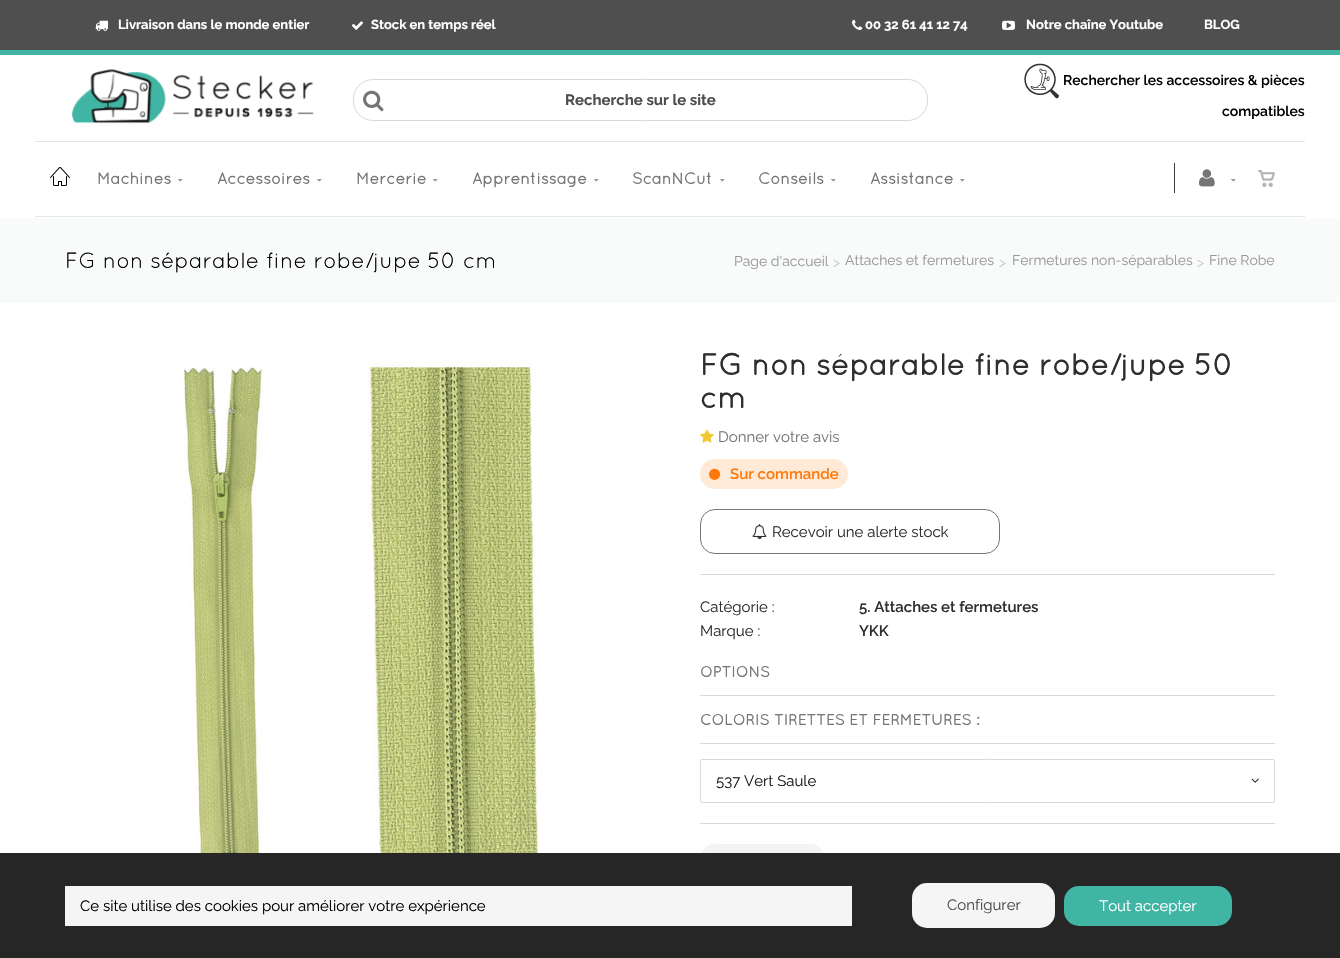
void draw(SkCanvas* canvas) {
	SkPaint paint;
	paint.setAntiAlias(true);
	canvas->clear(0xffffffff);
	paint.setColor(0xff4f4f4f);
	canvas->drawRect(SkRect::MakeXYWH(0, 0, 1340, 50), paint);
	paint.setColor(0xff41b5a3);
	canvas->drawRect(SkRect::MakeXYWH(0, 50, 1340, 5), paint);
	canvas->drawImageRect(SkImages::DeferredFromEncodedData(SkData::MakeFromFileName("img1.png")), SkRect::MakeXYWH(95, 20, 13, 11), SkSamplingOptions());
	SkFont f1(fontMgr->matchFamilyStyle("Raleway", SkFontStyle::Bold()), 13);
	f1.setSubpixel(true);
	paint.setColor(0xffffffff);
	canvas->drawString("Livraison dans le monde entier", 118, 29, f1, paint);
	canvas->drawImageRect(SkImages::DeferredFromEncodedData(SkData::MakeFromFileName("img2.png")), SkRect::MakeXYWH(351, 21, 13, 9), SkSamplingOptions());
	canvas->drawString("Stock en temps réel", 371, 29, f1, paint);
	canvas->drawImageRect(SkImages::DeferredFromEncodedData(SkData::MakeFromFileName("img3.png")), SkRect::MakeXYWH(852, 19, 11, 11), SkSamplingOptions());
	canvas->drawString("00 32 61 41 12 74", 865, 29, f1, paint);
	canvas->drawImageRect(SkImages::DeferredFromEncodedData(SkData::MakeFromFileName("img4.png")), SkRect::MakeXYWH(1002, 20, 13, 10), SkSamplingOptions());
	canvas->drawString("Notre chaîne Youtube", 1026, 29, f1, paint);
	canvas->drawString("BLOG", 1204, 29, f1, paint);
	canvas->drawImageRect(SkImages::DeferredFromEncodedData(SkData::MakeFromFileName("img5.png")), SkRect::MakeXYWH(72, 69, 242, 55), SkSamplingOptions());
	paint.setStroke(true);
	paint.setStrokeWidth(1);
	paint.setColor(0xffd9d9d9);
	canvas->drawRoundRect(SkRect::MakeXYWH(353.5, 79.5, 574, 41), 19.5, 19.5, paint);
	canvas->drawImageRect(SkImages::DeferredFromEncodedData(SkData::MakeFromFileName("img6.png")), SkRect::MakeXYWH(363, 90, 21, 22), SkSamplingOptions());
	SkFont f2(fontMgr->matchFamilyStyle("Raleway", SkFontStyle::Bold()), 15);
	f2.setSubpixel(true);
	paint.setStroke(false);
	paint.setColor(0xff4d4d4d);
	canvas->drawString("Recherche sur le site", 565, 105, f2, paint);
	canvas->drawImageRect(SkImages::DeferredFromEncodedData(SkData::MakeFromFileName("img7.png")), SkRect::MakeXYWH(1024, 63, 35, 36), SkSamplingOptions());
	SkFont f3(fontMgr->matchFamilyStyle("Raleway", SkFontStyle(600, SkFontStyle::kNormal_Width, SkFontStyle::kUpright_Slant)), 14);
	f3.setSubpixel(true);
	paint.setColor(0xff000000);
	canvas->drawString("Rechercher les accessoires & pièces", 1063, 85, f3, paint);
	canvas->drawString("compatibles", 1222, 116, f3, paint);
	paint.setColor(0xffe3e6e5);
	canvas->drawRect(SkRect::MakeXYWH(35, 141, 1270, 1), paint);
	canvas->drawRect(SkRect::MakeXYWH(35, 216, 1270, 1), paint);
	canvas->drawImageRect(SkImages::DeferredFromEncodedData(SkData::MakeFromFileName("img8.png")), SkRect::MakeXYWH(50, 167, 20, 19), SkSamplingOptions());
	SkFont f4(fontMgr->matchFamilyStyle("Quicksand", SkFontStyle::Bold()), 16);
	f4.setSubpixel(true);
	paint.setColor(0xff757575);
	canvas->drawString("Machines", 97, 184, f4, paint);
	canvas->drawImageRect(SkImages::DeferredFromEncodedData(SkData::MakeFromFileName("img9.png")), SkRect::MakeXYWH(178, 179, 5, 3), SkSamplingOptions());
	canvas->drawString("Accessoires", 217, 184, f4, paint);
	canvas->drawImageRect(SkImages::DeferredFromEncodedData(SkData::MakeFromFileName("img9.png")), SkRect::MakeXYWH(317, 179, 5, 3), SkSamplingOptions());
	canvas->drawString("Mercerie", 356, 184, f4, paint);
	canvas->drawImageRect(SkImages::DeferredFromEncodedData(SkData::MakeFromFileName("img9.png")), SkRect::MakeXYWH(433, 179, 5, 3), SkSamplingOptions());
	canvas->drawString("Apprentissage", 472, 184, f4, paint);
	canvas->drawImageRect(SkImages::DeferredFromEncodedData(SkData::MakeFromFileName("img9.png")), SkRect::MakeXYWH(594, 179, 5, 3), SkSamplingOptions());
	canvas->drawString("ScanNCut", 632, 184, f4, paint);
	canvas->drawImageRect(SkImages::DeferredFromEncodedData(SkData::MakeFromFileName("img9.png")), SkRect::MakeXYWH(720, 179, 5, 3), SkSamplingOptions());
	canvas->drawString("Conseils", 758, 184, f4, paint);
	canvas->drawImageRect(SkImages::DeferredFromEncodedData(SkData::MakeFromFileName("img9.png")), SkRect::MakeXYWH(831, 179, 5, 3), SkSamplingOptions());
	canvas->drawString("Assistance", 870, 184, f4, paint);
	canvas->drawImageRect(SkImages::DeferredFromEncodedData(SkData::MakeFromFileName("img9.png")), SkRect::MakeXYWH(960, 179, 5, 3), SkSamplingOptions());
	paint.setColor(0xff383838);
	canvas->drawRect(SkRect::MakeXYWH(1174, 163, 1, 30), paint);
	canvas->drawImageRect(SkImages::DeferredFromEncodedData(SkData::MakeFromFileName("img10.png")), SkRect::MakeXYWH(1199, 169, 16, 18), SkSamplingOptions());
	canvas->drawImageRect(SkImages::DeferredFromEncodedData(SkData::MakeFromFileName("img9.png")), SkRect::MakeXYWH(1231, 179, 5, 3), SkSamplingOptions());
	canvas->drawImageRect(SkImages::DeferredFromEncodedData(SkData::MakeFromFileName("img11.png")), SkRect::MakeXYWH(1258, 170, 17, 17), SkSamplingOptions());
	paint.setColor(0xfff9fafa);
	canvas->drawRect(SkRect::MakeXYWH(0, 218, 1340, 85), paint);
	SkFont f5(fontMgr->matchFamilyStyle("Quicksand", SkFontStyle::Normal()), 22);
	f5.setSubpixel(true);
	paint.setColor(0xff000000);
	canvas->drawString("FG non séparable fine robe/jupe 50 cm", 65, 268, f5, paint);
	SkFont f6(fontMgr->matchFamilyStyle("Raleway", SkFontStyle::Normal()), 14);
	f6.setSubpixel(true);
	paint.setColor(0xff999999);
	canvas->drawString("Page d'accueil", 734, 266, f6, paint);
	paint.setColor(0xffcccccc);
	canvas->drawString(">", 833, 267, f6, paint);
	paint.setColor(0xff999999);
	canvas->drawString("Attaches et fermetures", 845, 265, f6, paint);
	paint.setColor(0xffcccccc);
	canvas->drawString(">", 999, 267, f6, paint);
	paint.setColor(0xff999999);
	canvas->drawString("Fermetures non-séparables", 1012, 265, f6, paint);
	paint.setColor(0xffcccccc);
	canvas->drawString(">", 1197, 267, f6, paint);
	paint.setColor(0xff999999);
	canvas->drawString("Fine Robe", 1209, 265, f6, paint);
	canvas->drawImageRect(SkImages::DeferredFromEncodedData(SkData::MakeFromFileName("img12.png")), SkRect::MakeXYWH(183, 361, 362, 492), SkSamplingOptions());
	SkFont f7(fontMgr->matchFamilyStyle("Quicksand", SkFontStyle::Bold()), 30);
	f7.setSubpixel(true);
	paint.setColor(0xff2e2e2e);
	canvas->drawString("FG non séparable fine robe/jupe 50", 700, 375, f7, paint);
	canvas->drawString("cm", 700, 408, f7, paint);
	canvas->drawImageRect(SkImages::DeferredFromEncodedData(SkData::MakeFromFileName("img13.png")), SkRect::MakeXYWH(700, 429, 14, 14), SkSamplingOptions());
	SkFont f8(fontMgr->matchFamilyStyle("Raleway", SkFontStyle::Normal()), 15);
	f8.setSubpixel(true);
	paint.setColor(0xff757575);
	canvas->drawString("Donner votre avis", 718, 442, f8, paint);
	paint.setColor(0xffffead8);
	canvas->drawRoundRect(SkRect::MakeXYWH(700, 459, 148, 30), 15, 15, paint);
	canvas->drawImageRect(SkImages::DeferredFromEncodedData(SkData::MakeFromFileName("img14.png")), SkRect::MakeXYWH(709, 468, 12, 12), SkSamplingOptions());
	SkFont f9(fontMgr->matchFamilyStyle("Raleway", SkFontStyle(600, SkFontStyle::kNormal_Width, SkFontStyle::kUpright_Slant)), 15);
	f9.setSubpixel(true);
	paint.setColor(0xffff7909);
	canvas->drawString("Sur commande", 730, 479, f9, paint);
	paint.setStroke(true);
	paint.setColor(0xff757575);
	canvas->drawRoundRect(SkRect::MakeXYWH(700.5, 509.5, 299, 44), 14.5, 14.5, paint);
	canvas->drawImageRect(SkImages::DeferredFromEncodedData(SkData::MakeFromFileName("img15.png")), SkRect::MakeXYWH(752, 524, 15, 16), SkSamplingOptions());
	paint.setStroke(false);
	paint.setColor(0xff2e2e2e);
	canvas->drawString("Recevoir une alerte stock", 772, 537, f8, paint);
	paint.setColor(0xffd9d9d9);
	canvas->drawRect(SkRect::MakeXYWH(700, 574, 575, 1), paint);
	paint.setColor(0xff2e2e2e);
	canvas->drawString("Catégorie :", 700, 612, f8, paint);
	canvas->drawString("5. Attaches et fermetures", 859, 612, f9, paint);
	canvas->drawString("Marque :", 700, 636, f8, paint);
	canvas->drawString("YKK", 859, 636, f9, paint);
	paint.setColor(0xffd9d9d9);
	canvas->drawRect(SkRect::MakeXYWH(700, 695, 575, 1), paint);
	SkFont f10(fontMgr->matchFamilyStyle("Quicksand", SkFontStyle::Bold()), 15);
	f10.setSubpixel(true);
	paint.setColor(0xff757575);
	canvas->drawString("OPTIONS", 700, 677, f10, paint);
	paint.setColor(0xffd9d9d9);
	canvas->drawRect(SkRect::MakeXYWH(700, 743, 575, 1), paint);
	paint.setColor(0xff757575);
	canvas->drawString("COLORIS TIRETTES ET FERMETURES :", 700, 725, f10, paint);
	paint.setStroke(true);
	paint.setColor(0xffd9d9d9);
	canvas->drawRoundRect(SkRect::MakeXYWH(700.5, 759.5, 574, 43), 1.5, 1.5, paint);
	paint.setStroke(false);
	paint.setColor(0xff1a1a1a);
	canvas->drawString("537 Vert Saule", 716, 786, f8, paint);
	canvas->drawImageRect(SkImages::DeferredFromEncodedData(SkData::MakeFromFileName("img16.png")), SkRect::MakeXYWH(1251, 778, 8, 5), SkSamplingOptions());
	paint.setColor(0xffd9d9d9);
	canvas->drawRect(SkRect::MakeXYWH(700, 823, 575, 1), paint);
	paint.setColor(0xfff3f3f3);
	canvas->drawRoundRect(SkRect::MakeXYWH(700, 844, 125, 47), 15, 15, paint);
	paint.setColor(0xff262626);
	canvas->drawRect(SkRect::MakeXYWH(0, 853, 1340, 105), paint);
	paint.setColor(0xfff5f5f5);
	canvas->drawRect(SkRect::MakeXYWH(65, 886, 787, 40), paint);
	paint.setColor(0xff000000);
	canvas->drawString("Ce site utilise des cookies pour améliorer votre expérience", 80, 911, f8, paint);
	paint.setColor(0xfff5f5f5);
	canvas->drawRoundRect(SkRect::MakeXYWH(912, 883, 143, 45), 15, 15, paint);
	paint.setColor(0xff4d4d4d);
	canvas->drawString("Configurer", 947, 910, f8, paint);
	paint.setColor(0xff41b5a3);
	canvas->drawRoundRect(SkRect::MakeXYWH(1064, 886, 168, 40), 15, 15, paint);
	paint.setColor(0xffffffff);
	canvas->drawString("Tout accepter", 1099, 911, f8, paint);
}
